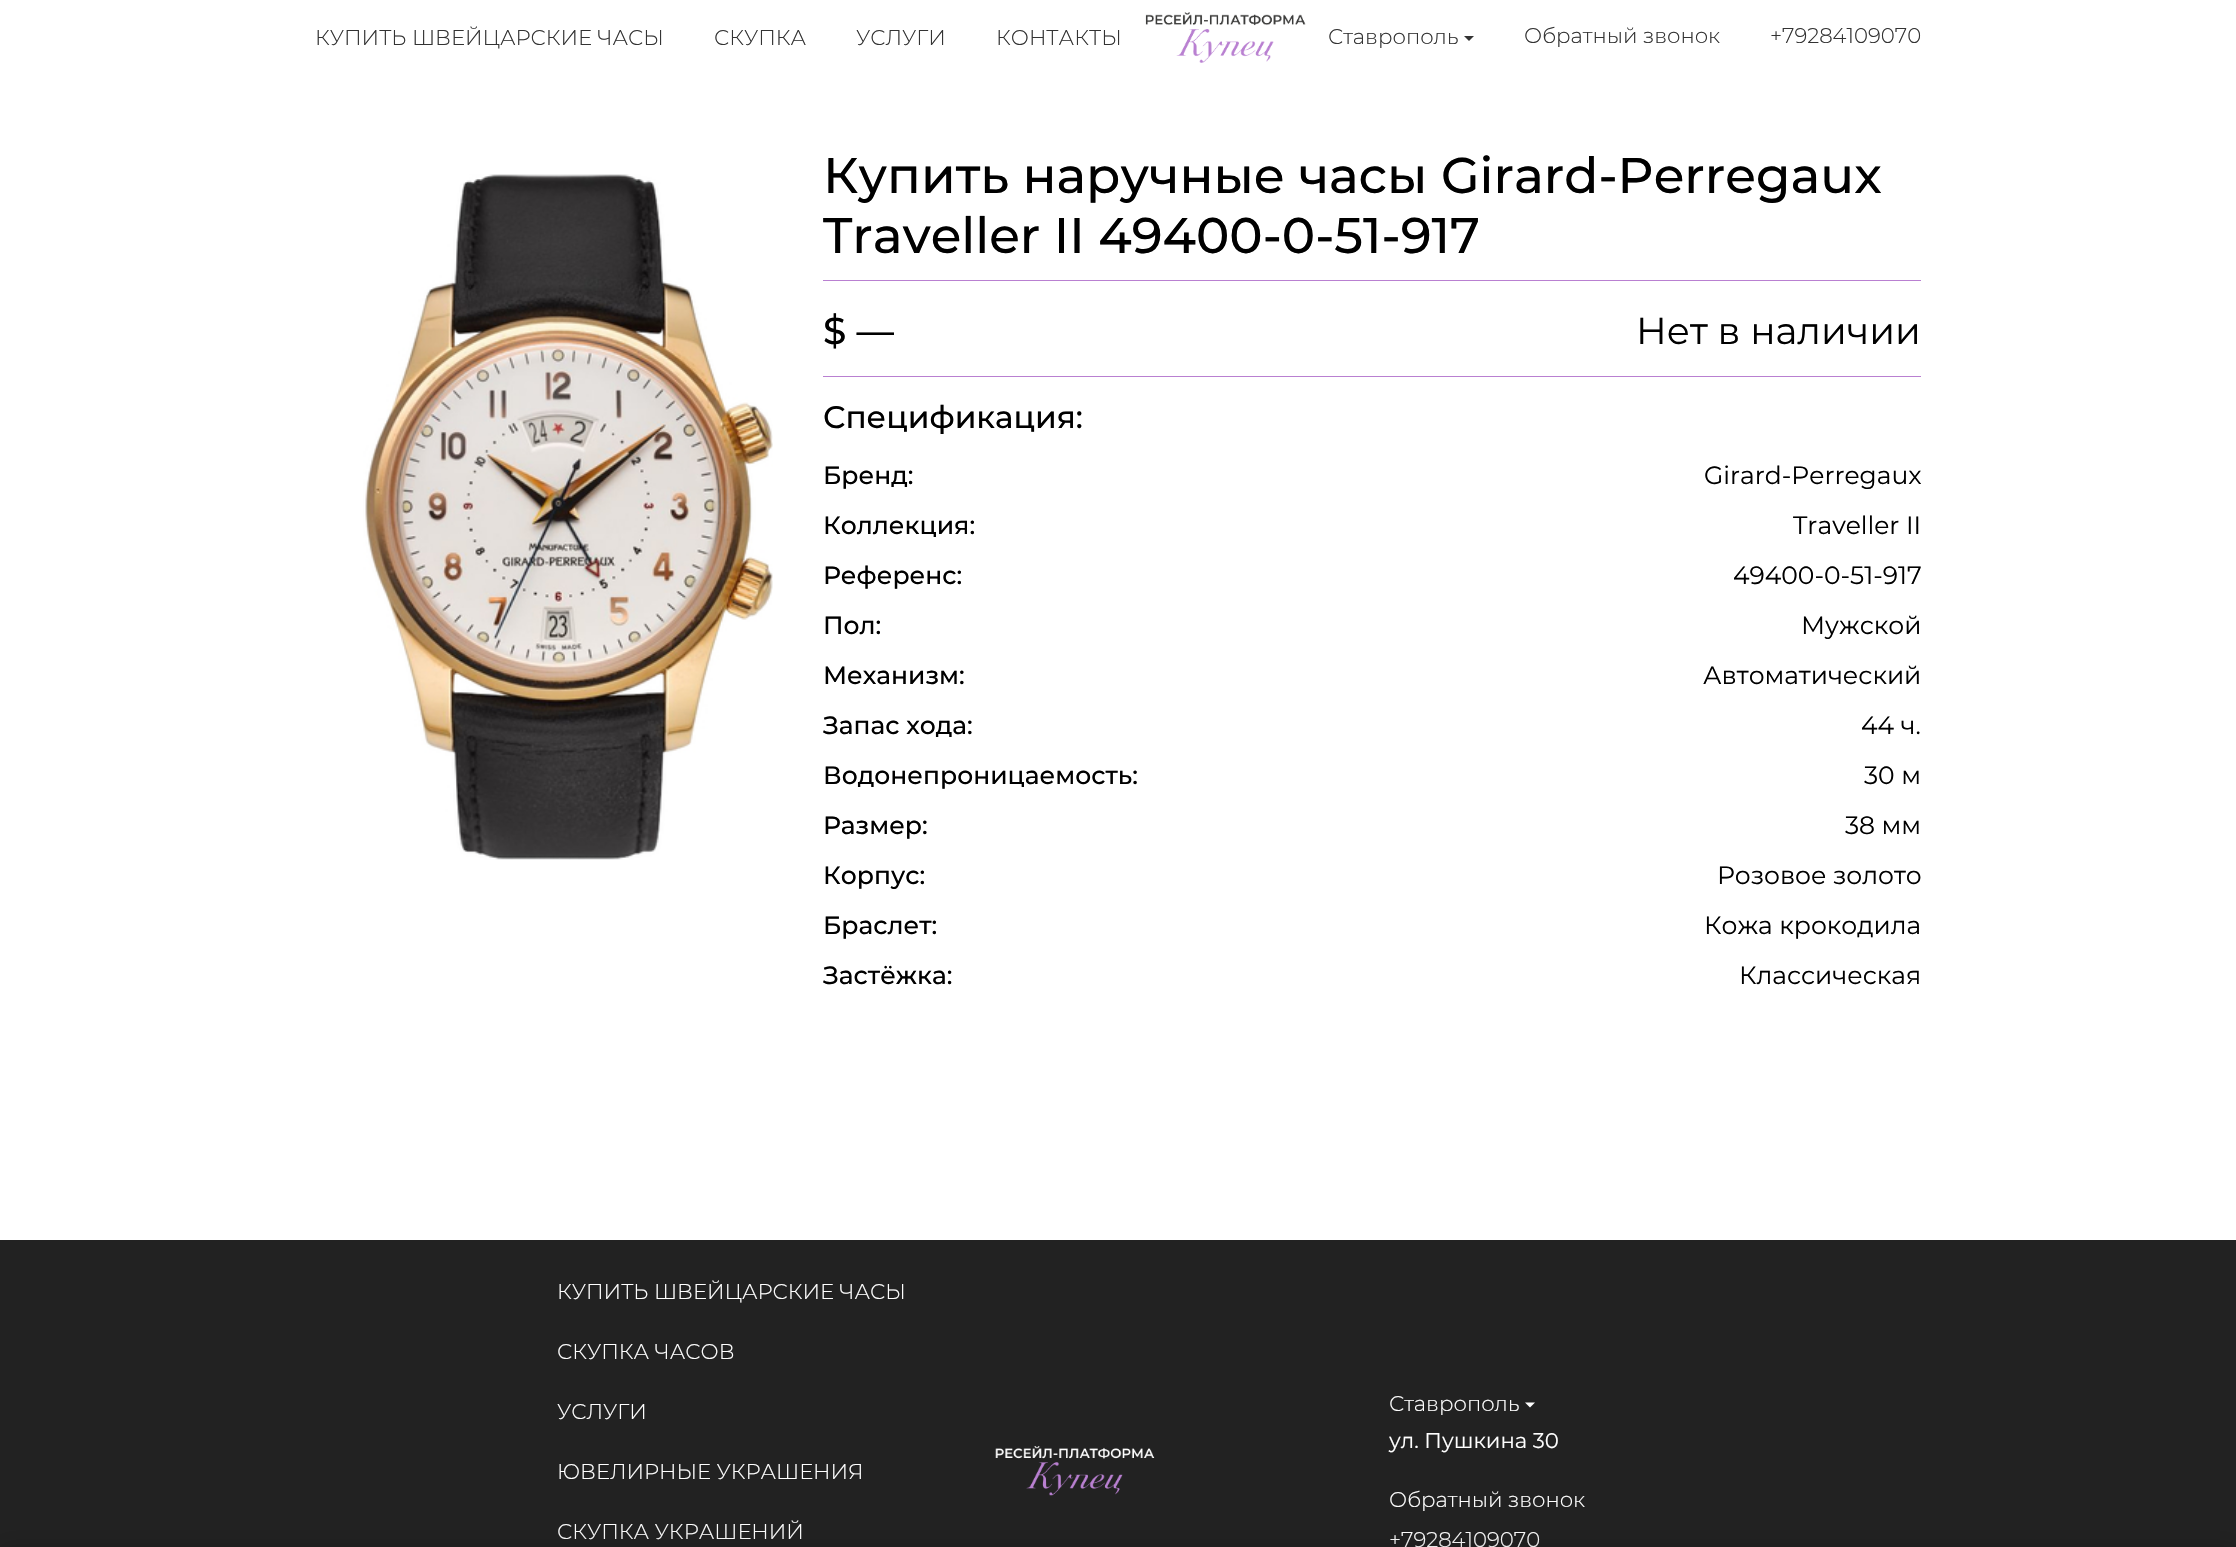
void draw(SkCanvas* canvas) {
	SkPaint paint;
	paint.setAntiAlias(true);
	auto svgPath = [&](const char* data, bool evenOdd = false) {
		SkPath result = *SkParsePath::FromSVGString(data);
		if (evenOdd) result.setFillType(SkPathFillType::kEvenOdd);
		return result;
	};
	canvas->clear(0xffffffff);
	SkFont f1(fontMgr->matchFamilyStyle("Montserrat", SkFontStyle(300, SkFontStyle::kNormal_Width, SkFontStyle::kUpright_Slant)), 21.25);
	f1.setSubpixel(true);
	paint.setColor(0xff333333);
	canvas->drawString("КУПИТЬ ШВЕЙЦАРСКИЕ ЧАСЫ", 315, 45, f1, paint);
	canvas->drawString("СКУПКА", 714, 45, f1, paint);
	canvas->drawString("УСЛУГИ", 856, 45, f1, paint);
	canvas->drawString("КОНТАКТЫ", 996, 45, f1, paint);
	canvas->drawImageRect(SkImages::DeferredFromEncodedData(SkData::MakeFromFileName("img1.png")), SkRect::MakeXYWH(1145, 12, 161, 51), SkSamplingOptions());
	canvas->drawString("Ставрополь", 1328, 44, f1, paint);
	canvas->drawPath(svgPath("M1464 36H1474L1469 41Z"), paint);
	canvas->drawString("Обратный звонок", 1524, 43, f1, paint);
	canvas->drawString("+79284109070", 1770, 43, f1, paint);
	canvas->drawImageRect(SkImages::DeferredFromEncodedData(SkData::MakeFromFileName("img2.png")), SkRect::MakeXYWH(363, 174, 410, 686), SkSamplingOptions());
	paint.setColor(0xffb980d1);
	canvas->drawRect(SkRect::MakeXYWH(823, 280, 1098, 1), paint);
	SkFont f2(fontMgr->matchFamilyStyle("Montserrat", SkFontStyle(500, SkFontStyle::kNormal_Width, SkFontStyle::kUpright_Slant)), 50);
	f2.setSubpixel(true);
	paint.setColor(0xff000000);
	canvas->drawString("Купить наручные часы Girard-Perregaux", 823, 193, f2, paint);
	canvas->drawString("Traveller II 49400-0-51-917", 823, 253, f2, paint);
	paint.setColor(0xffb980d1);
	canvas->drawRect(SkRect::MakeXYWH(823, 376, 1098, 1), paint);
	SkFont f3(fontMgr->matchFamilyStyle("Montserrat", SkFontStyle(500, SkFontStyle::kNormal_Width, SkFontStyle::kUpright_Slant)), 37.5);
	f3.setSubpixel(true);
	paint.setColor(0xff000000);
	canvas->drawString("$ —", 823, 344, f3, paint);
	SkFont f4(fontMgr->matchFamilyStyle("Montserrat", SkFontStyle::Normal()), 37.5);
	f4.setSubpixel(true);
	canvas->drawString("Нет в наличии", 1636, 344, f4, paint);
	SkFont f5(fontMgr->matchFamilyStyle("Montserrat", SkFontStyle(500, SkFontStyle::kNormal_Width, SkFontStyle::kUpright_Slant)), 31.25);
	f5.setSubpixel(true);
	canvas->drawString("Спецификация:", 823, 428, f5, paint);
	SkFont f6(fontMgr->matchFamilyStyle("Montserrat", SkFontStyle(500, SkFontStyle::kNormal_Width, SkFontStyle::kUpright_Slant)), 25);
	f6.setSubpixel(true);
	canvas->drawString("Бренд:", 823, 484, f6, paint);
	SkFont f7(fontMgr->matchFamilyStyle("Montserrat", SkFontStyle::Normal()), 25);
	f7.setSubpixel(true);
	canvas->drawString("Girard-Perregaux", 1704, 484, f7, paint);
	canvas->drawString("Коллекция:", 823, 534, f6, paint);
	canvas->drawString("Traveller II", 1793, 534, f7, paint);
	canvas->drawString("Референс:", 823, 584, f6, paint);
	canvas->drawString("49400-0-51-917", 1733, 584, f7, paint);
	canvas->drawString("Пол:", 823, 634, f6, paint);
	canvas->drawString("Мужской", 1801, 634, f7, paint);
	canvas->drawString("Механизм:", 823, 684, f6, paint);
	canvas->drawString("Автоматический", 1703, 684, f7, paint);
	canvas->drawString("Запас хода:", 823, 734, f6, paint);
	canvas->drawString("44 ч.", 1861, 734, f7, paint);
	canvas->drawString("Водонепроницаемость:", 823, 784, f6, paint);
	canvas->drawString("30 м", 1864, 784, f7, paint);
	canvas->drawString("Размер:", 823, 834, f6, paint);
	canvas->drawString("38 мм", 1845, 834, f7, paint);
	canvas->drawString("Корпус:", 823, 884, f6, paint);
	canvas->drawString("Розовое золото", 1717, 884, f7, paint);
	canvas->drawString("Браслет:", 823, 934, f6, paint);
	canvas->drawString("Кожа крокодила", 1704, 934, f7, paint);
	canvas->drawString("Застёжка:", 823, 984, f6, paint);
	canvas->drawString("Классическая", 1739, 984, f7, paint);
	paint.setColor(0xff222222);
	canvas->drawRect(SkRect::MakeXYWH(0, 1240, 2236, 307), paint);
	paint.setColor(0xffffffff);
	canvas->drawString("КУПИТЬ ШВЕЙЦАРСКИЕ ЧАСЫ", 557, 1299, f1, paint);
	canvas->drawString("СКУПКА ЧАСОВ", 557, 1359, f1, paint);
	canvas->drawString("УСЛУГИ", 557, 1419, f1, paint);
	canvas->drawString("ЮВЕЛИРНЫЕ УКРАШЕНИЯ", 557, 1479, f1, paint);
	canvas->drawString("СКУПКА УКРАШЕНИЙ", 557, 1539, f1, paint);
	canvas->drawImageRect(SkImages::DeferredFromEncodedData(SkData::MakeFromFileName("img3.png")), SkRect::MakeXYWH(995, 1446, 160, 50), SkSamplingOptions());
	canvas->drawString("Ставрополь", 1389, 1411, f1, paint);
	canvas->drawPath(svgPath("M1525 1402.5H1535L1530 1407.5Z"), paint);
	SkFont f8(fontMgr->matchFamilyStyle("Montserrat", SkFontStyle::Normal()), 21.25);
	f8.setSubpixel(true);
	canvas->drawString("ул. Пушкина 30", 1389, 1448, f8, paint);
	canvas->drawString("Обратный звонок", 1389, 1507, f1, paint);
	canvas->drawString("+79284109070", 1389, 1547, f1, paint);
	paint.setColor(0x33000000);
	paint.setMaskFilter(SkMaskFilter::MakeBlur(kNormal_SkBlurStyle, 12.5));
	canvas->drawRect(SkRect::MakeXYWH(0, 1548, 2236, 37), paint);
	paint.setMaskFilter(nullptr);
}
